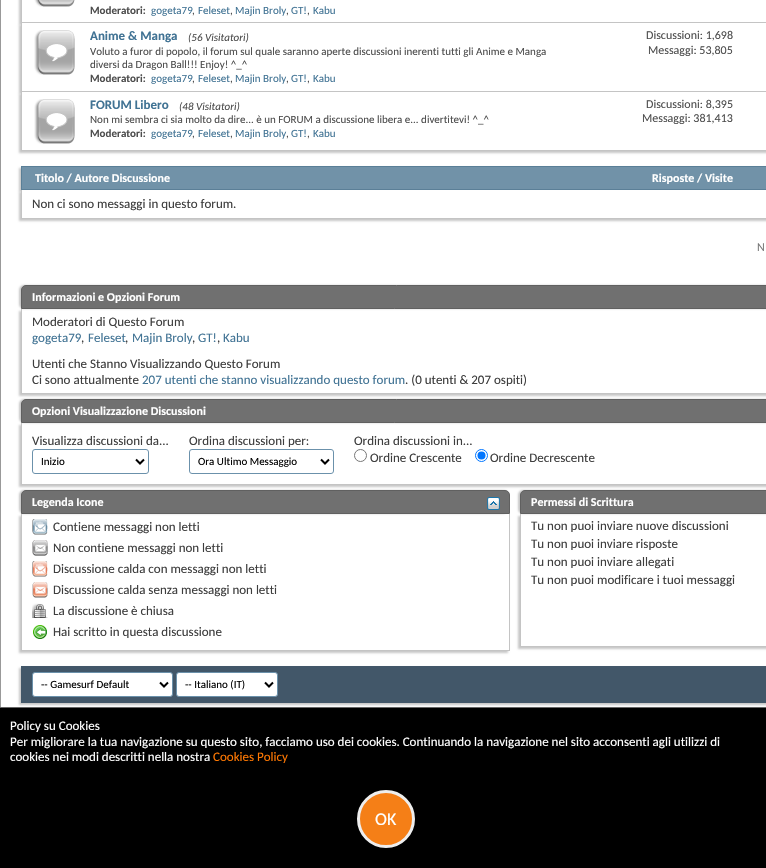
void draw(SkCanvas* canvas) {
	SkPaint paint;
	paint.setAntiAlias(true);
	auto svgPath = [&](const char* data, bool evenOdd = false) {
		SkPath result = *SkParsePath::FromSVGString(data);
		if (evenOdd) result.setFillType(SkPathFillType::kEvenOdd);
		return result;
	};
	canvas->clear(0xffffffff);
	paint.setStroke(true);
	paint.setStrokeWidth(1);
	paint.setColor(0xff999999);
	canvas->drawRect(SkRect::MakeXYWH(0.5, -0.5, 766, 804), paint);
	canvas->save();
	canvas->clipRect(SkRect::MakeXYWH(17, 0, 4, 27));
	paint.setStroke(false);
	paint.setColor(0xffc8c8c8);
	paint.setMaskFilter(SkMaskFilter::MakeBlur(kNormal_SkBlurStyle, 1));
	canvas->drawRect(SkRect::MakeXYWH(19, -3, 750, 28), paint);
	paint.setMaskFilter(nullptr);
	canvas->restore();
	paint.setColor(0xffc4c4c4);
	canvas->drawRect(SkRect::MakeXYWH(21, 22, 745, 1), paint);
	canvas->drawRect(SkRect::MakeXYWH(21, 0, 1, 23), paint);
	canvas->drawImageRect(SkImages::DeferredFromEncodedData(SkData::MakeFromFileName("img1.png")), SkRect::MakeXYWH(34, 0, 41, 7), SkSamplingOptions());
	SkFont f1(fontMgr->matchFamilyStyle("Carlito", SkFontStyle::Bold()), 11);
	f1.setSubpixel(true);
	paint.setColor(0xff4e4e4e);
	canvas->drawString("Moderatori:", 90, 14, f1, paint);
	SkFont f2(fontMgr->matchFamilyStyle("Carlito", SkFontStyle::Normal()), 11);
	f2.setSubpixel(true);
	paint.setColor(0xff417394);
	canvas->drawString("gogeta79", 151, 14, f2, paint);
	paint.setColor(0xff4e4e4e);
	canvas->drawString(",", 192, 14, f2, paint);
	paint.setColor(0xff417394);
	canvas->drawString("Feleset", 198, 14, f2, paint);
	paint.setColor(0xff4e4e4e);
	canvas->drawString(",", 230, 14, f2, paint);
	paint.setColor(0xff417394);
	canvas->drawString("Majin Broly", 235, 14, f2, paint);
	paint.setColor(0xff4e4e4e);
	canvas->drawString(",", 286, 14, f2, paint);
	paint.setColor(0xff417394);
	canvas->drawString("GT!", 291, 14, f2, paint);
	paint.setColor(0xff4e4e4e);
	canvas->drawString(",", 307, 14, f2, paint);
	paint.setColor(0xff417394);
	canvas->drawString("Kabu", 313, 14, f2, paint);
	paint.setColor(0xffc8c8c8);
	paint.setMaskFilter(SkMaskFilter::MakeBlur(kNormal_SkBlurStyle, 1));
	canvas->drawRect(SkRect::MakeXYWH(19, 25, 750, 69), paint);
	paint.setMaskFilter(nullptr);
	paint.setColor(0xffffffff);
	canvas->drawRect(SkRect::MakeXYWH(22, 23, 744, 68), paint);
	paint.setColor(0xffc4c4c4);
	canvas->drawRect(SkRect::MakeXYWH(21, 91, 745, 1), paint);
	canvas->drawRect(SkRect::MakeXYWH(21, 23, 1, 69), paint);
	canvas->drawImageRect(SkImages::DeferredFromEncodedData(SkData::MakeFromFileName("img2.png")), SkRect::MakeXYWH(34, 30, 41, 45), SkSamplingOptions());
	SkFont f3(fontMgr->matchFamilyStyle("Carlito", SkFontStyle::Bold()), 13);
	f3.setSubpixel(true);
	paint.setColor(0xff417394);
	canvas->drawString("Anime & Manga", 90, 40, f3, paint);
	SkFont f4(fontMgr->matchFamilyStyle("Carlito", SkFontStyle::Italic()), 11);
	f4.setSubpixel(true);
	paint.setColor(0xff4e4e4e);
	canvas->drawString("(56 Visitatori)", 188, 41, f4, paint);
	canvas->drawString("Voluto a furor di popolo, il forum sul quale saranno aperte discussioni inerenti tutti gli Anime e Manga", 90, 55, f2, paint);
	canvas->drawString("diversi da Dragon Ball!!! Enjoy! ^_^", 90, 68, f2, paint);
	canvas->drawString("Moderatori:", 90, 82, f1, paint);
	paint.setColor(0xff417394);
	canvas->drawString("gogeta79", 151, 82, f2, paint);
	paint.setColor(0xff4e4e4e);
	canvas->drawString(",", 192, 82, f2, paint);
	paint.setColor(0xff417394);
	canvas->drawString("Feleset", 198, 82, f2, paint);
	paint.setColor(0xff4e4e4e);
	canvas->drawString(",", 230, 82, f2, paint);
	paint.setColor(0xff417394);
	canvas->drawString("Majin Broly", 235, 82, f2, paint);
	paint.setColor(0xff4e4e4e);
	canvas->drawString(",", 286, 82, f2, paint);
	paint.setColor(0xff417394);
	canvas->drawString("GT!", 291, 82, f2, paint);
	paint.setColor(0xff4e4e4e);
	canvas->drawString(",", 307, 82, f2, paint);
	paint.setColor(0xff417394);
	canvas->drawString("Kabu", 313, 82, f2, paint);
	SkFont f5(fontMgr->matchFamilyStyle("Carlito", SkFontStyle::Normal()), 12);
	f5.setSubpixel(true);
	paint.setColor(0xff4e4e4e);
	canvas->drawString("Discussioni: 1,698", 646, 39, f5, paint);
	canvas->drawString("Messaggi: 53,805", 648, 54, f5, paint);
	paint.setColor(0xffc8c8c8);
	paint.setMaskFilter(SkMaskFilter::MakeBlur(kNormal_SkBlurStyle, 1));
	canvas->drawRect(SkRect::MakeXYWH(19, 94, 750, 59), paint);
	paint.setMaskFilter(nullptr);
	paint.setColor(0xffffffff);
	canvas->drawRect(SkRect::MakeXYWH(22, 92, 744, 58), paint);
	paint.setColor(0xffc4c4c4);
	canvas->drawRect(SkRect::MakeXYWH(21, 150, 745, 1), paint);
	canvas->drawRect(SkRect::MakeXYWH(21, 92, 1, 59), paint);
	canvas->drawImageRect(SkImages::DeferredFromEncodedData(SkData::MakeFromFileName("img2.png")), SkRect::MakeXYWH(34, 99, 41, 45), SkSamplingOptions());
	paint.setColor(0xff417394);
	canvas->drawString("FORUM Libero", 90, 109, f3, paint);
	paint.setColor(0xff4e4e4e);
	canvas->drawString("(48 Visitatori)", 179, 110, f4, paint);
	canvas->drawString("Non mi sembra ci sia molto da dire... è un FORUM a discussione libera e... divertitevi! ^_^", 90, 123, f2, paint);
	canvas->drawString("Moderatori:", 90, 137, f1, paint);
	paint.setColor(0xff417394);
	canvas->drawString("gogeta79", 151, 137, f2, paint);
	paint.setColor(0xff4e4e4e);
	canvas->drawString(",", 192, 137, f2, paint);
	paint.setColor(0xff417394);
	canvas->drawString("Feleset", 198, 137, f2, paint);
	paint.setColor(0xff4e4e4e);
	canvas->drawString(",", 230, 137, f2, paint);
	paint.setColor(0xff417394);
	canvas->drawString("Majin Broly", 235, 137, f2, paint);
	paint.setColor(0xff4e4e4e);
	canvas->drawString(",", 286, 137, f2, paint);
	paint.setColor(0xff417394);
	canvas->drawString("GT!", 291, 137, f2, paint);
	paint.setColor(0xff4e4e4e);
	canvas->drawString(",", 307, 137, f2, paint);
	paint.setColor(0xff417394);
	canvas->drawString("Kabu", 313, 137, f2, paint);
	paint.setColor(0xff4e4e4e);
	canvas->drawString("Discussioni: 8,395", 646, 108, f5, paint);
	canvas->drawString("Messaggi: 381,413", 642, 122, f5, paint);
	paint.setColor(0xffc8c8c8);
	paint.setMaskFilter(SkMaskFilter::MakeBlur(kNormal_SkBlurStyle, 1));
	canvas->drawRect(SkRect::MakeXYWH(19, 168, 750, 24), paint);
	paint.setMaskFilter(nullptr);
	paint.setColor(0xff7192a8);
	canvas->drawRect(SkRect::MakeXYWH(21.5, 166.5, 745, 23), paint);
	paint.setStroke(true);
	paint.setColor(0xff5a7f97);
	canvas->drawRect(SkRect::MakeXYWH(21.5, 166.5, 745, 23), paint);
	SkFont f6(fontMgr->matchFamilyStyle("Carlito", SkFontStyle::Bold()), 12);
	f6.setSubpixel(true);
	paint.setStroke(false);
	paint.setColor(0xffffffff);
	canvas->drawString("Titolo / Autore Discussione", 35, 182, f6, paint);
	canvas->drawString("Risposte / Visite", 652, 182, f6, paint);
	paint.setColor(0xffc8c8c8);
	paint.setMaskFilter(SkMaskFilter::MakeBlur(kNormal_SkBlurStyle, 1));
	canvas->drawRect(SkRect::MakeXYWH(19, 192, 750, 29), paint);
	paint.setMaskFilter(nullptr);
	paint.setColor(0xffffffff);
	canvas->drawRect(SkRect::MakeXYWH(22, 190, 744, 28), paint);
	paint.setColor(0xffc4c4c4);
	canvas->drawRect(SkRect::MakeXYWH(21, 218, 745, 1), paint);
	canvas->drawRect(SkRect::MakeXYWH(21, 190, 1, 29), paint);
	SkFont f7(fontMgr->matchFamilyStyle("Carlito", SkFontStyle::Normal()), 13);
	f7.setSubpixel(true);
	paint.setColor(0xff3e3e3e);
	canvas->drawString("Non ci sono messaggi in questo forum.", 32, 208, f7, paint);
	paint.setColor(0xff777777);
	canvas->drawString("N", 757, 251, f5, paint);
	canvas->save();
	canvas->clipPath(svgPath("M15 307H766V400H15ZM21 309H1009V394H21Z", true), true);
	paint.setColor(0xffc8c8c8);
	paint.setMaskFilter(SkMaskFilter::MakeBlur(kNormal_SkBlurStyle, 1));
	canvas->drawRect(SkRect::MakeXYWH(19, 311, 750, 85), paint);
	paint.setMaskFilter(nullptr);
	canvas->restore();
	paint.setColor(0xffc4c4c4);
	canvas->drawRect(SkRect::MakeXYWH(21, 393, 745, 1), paint);
	canvas->drawRect(SkRect::MakeXYWH(21, 309, 1, 85), paint);
	paint.setColor(0xffc8c8c8);
	paint.setMaskFilter(SkMaskFilter::MakeBlur(kNormal_SkBlurStyle, 1));
	canvas->drawRoundRect(SkRect::MakeXYWH(19, 285, 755, 24), 5, 5, paint);
	paint.setMaskFilter(nullptr);
	paint.setColor(0xff707070);
	canvas->drawPath(svgPath("M26 285.5H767C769.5 285.5 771.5 287.5 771.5 290V308.5H21.5V290C21.5 287.5 23.5 285.5 26 285.5Z"), paint);
	paint.setStroke(true);
	paint.setColor(0xff606060);
	canvas->drawPath(svgPath("M26 285.5H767C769.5 285.5 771.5 287.5 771.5 290V308.5H21.5V290C21.5 287.5 23.5 285.5 26 285.5Z"), paint);
	paint.setStroke(false);
	paint.setColor(0xffffffff);
	canvas->drawString("Informazioni e Opzioni Forum", 32, 301, f6, paint);
	paint.setColor(0xff3e3e3e);
	canvas->drawString("Moderatori di Questo Forum", 32, 326, f7, paint);
	paint.setColor(0xff417394);
	canvas->drawString("gogeta79", 32, 342, f7, paint);
	paint.setColor(0xff3e3e3e);
	canvas->drawString(",", 81, 342, f7, paint);
	paint.setColor(0xff417394);
	canvas->drawString("Feleset", 88, 342, f7, paint);
	paint.setColor(0xff3e3e3e);
	canvas->drawString(",", 125, 342, f7, paint);
	paint.setColor(0xff417394);
	canvas->drawString("Majin Broly", 132, 342, f7, paint);
	paint.setColor(0xff3e3e3e);
	canvas->drawString(",", 192, 342, f7, paint);
	paint.setColor(0xff417394);
	canvas->drawString("GT!", 198, 342, f7, paint);
	paint.setColor(0xff3e3e3e);
	canvas->drawString(",", 217, 342, f7, paint);
	paint.setColor(0xff417394);
	canvas->drawString("Kabu", 223, 342, f7, paint);
	paint.setColor(0xff3e3e3e);
	canvas->drawString("Utenti che Stanno Visualizzando Questo Forum", 32, 368, f7, paint);
	canvas->drawString("Ci sono attualmente", 32, 384, f7, paint);
	paint.setColor(0xff417394);
	canvas->drawString("207 utenti che stanno visualizzando questo forum", 142, 384, f7, paint);
	paint.setColor(0xff3e3e3e);
	canvas->drawString(". (0 utenti & 207 ospiti)", 405, 384, f7, paint);
	canvas->save();
	canvas->clipPath(svgPath("M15 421H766V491H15ZM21 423H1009V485H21Z", true), true);
	paint.setColor(0xffc8c8c8);
	paint.setMaskFilter(SkMaskFilter::MakeBlur(kNormal_SkBlurStyle, 1));
	canvas->drawRect(SkRect::MakeXYWH(19, 425, 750, 62), paint);
	paint.setMaskFilter(nullptr);
	canvas->restore();
	paint.setColor(0xffc4c4c4);
	canvas->drawRect(SkRect::MakeXYWH(21, 484, 745, 1), paint);
	canvas->drawRect(SkRect::MakeXYWH(21, 423, 1, 62), paint);
	paint.setColor(0xffc8c8c8);
	paint.setMaskFilter(SkMaskFilter::MakeBlur(kNormal_SkBlurStyle, 1));
	canvas->drawRoundRect(SkRect::MakeXYWH(19, 399, 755, 24), 5, 5, paint);
	paint.setMaskFilter(nullptr);
	paint.setColor(0xff707070);
	canvas->drawPath(svgPath("M26 399.5H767C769.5 399.5 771.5 401.5 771.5 404V422.5H21.5V404C21.5 401.5 23.5 399.5 26 399.5Z"), paint);
	paint.setStroke(true);
	paint.setColor(0xff606060);
	canvas->drawPath(svgPath("M26 399.5H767C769.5 399.5 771.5 401.5 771.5 404V422.5H21.5V404C21.5 401.5 23.5 399.5 26 399.5Z"), paint);
	paint.setStroke(false);
	paint.setColor(0xffffffff);
	canvas->drawString("Opzioni Visualizzazione Discussioni", 32, 415, f6, paint);
	paint.setColor(0xff3e3e3e);
	canvas->drawString("Visualizza discussioni da...", 32, 445, f7, paint);
	paint.setStroke(true);
	paint.setColor(0xff6b91ab);
	canvas->drawRoundRect(SkRect::MakeXYWH(32.5, 449.5, 116, 24), 2.5, 2.5, paint);
	paint.setStrokeWidth(2);
	paint.setColor(0xff000000);
	canvas->drawPath(svgPath("M136 459.5L140 463.5L144 459.5"), paint);
	paint.setStroke(false);
	canvas->drawString("Inizio", 41, 465, f2, paint);
	paint.setColor(0xff3e3e3e);
	canvas->drawString("Ordina discussioni per:", 189, 445, f7, paint);
	paint.setStroke(true);
	paint.setStrokeWidth(1);
	paint.setColor(0xff6b91ab);
	canvas->drawRoundRect(SkRect::MakeXYWH(189.5, 449.5, 144, 24), 2.5, 2.5, paint);
	paint.setStrokeWidth(2);
	paint.setColor(0xff000000);
	canvas->drawPath(svgPath("M321 459.5L325 463.5L329 459.5"), paint);
	paint.setStroke(false);
	canvas->drawString("Ora Ultimo Messaggio", 198, 465, f2, paint);
	paint.setColor(0xff3e3e3e);
	canvas->drawString("Ordina discussioni in...", 354, 445, f7, paint);
	paint.setStroke(true);
	paint.setStrokeWidth(1);
	paint.setColor(0xff767676);
	canvas->drawCircle(360.5, 455.5, 6, paint);
	paint.setStroke(false);
	paint.setColor(0xff3e3e3e);
	canvas->drawString("Ordine Crescente", 370, 462, f7, paint);
	paint.setStroke(true);
	paint.setColor(0xff0075ff);
	canvas->drawCircle(481.5, 455.5, 6, paint);
	paint.setStroke(false);
	canvas->drawCircle(481.5, 455.5, 4, paint);
	paint.setColor(0xff3e3e3e);
	canvas->drawString("Ordine Decrescente", 490, 462, f7, paint);
	canvas->save();
	canvas->clipPath(svgPath("M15 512H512V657H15ZM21 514H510V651H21Z", true), true);
	paint.setColor(0xffc8c8c8);
	paint.setMaskFilter(SkMaskFilter::MakeBlur(kNormal_SkBlurStyle, 1));
	canvas->drawRect(SkRect::MakeXYWH(19, 516, 489, 137), paint);
	paint.setMaskFilter(nullptr);
	canvas->restore();
	paint.setColor(0xffc4c4c4);
	canvas->drawRect(SkRect::MakeXYWH(509, 514, 1, 137), paint);
	canvas->drawRect(SkRect::MakeXYWH(21, 650, 489, 1), paint);
	canvas->drawRect(SkRect::MakeXYWH(21, 514, 1, 137), paint);
	paint.setColor(0xffc8c8c8);
	paint.setMaskFilter(SkMaskFilter::MakeBlur(kNormal_SkBlurStyle, 1));
	canvas->drawRoundRect(SkRect::MakeXYWH(19, 490, 489, 24), 5, 5, paint);
	paint.setMaskFilter(nullptr);
	paint.setColor(0xff707070);
	canvas->drawPath(svgPath("M26 490.5H505C507.5 490.5 509.5 492.5 509.5 495V513.5H21.5V495C21.5 492.5 23.5 490.5 26 490.5Z"), paint);
	paint.setStroke(true);
	paint.setColor(0xff606060);
	canvas->drawPath(svgPath("M26 490.5H505C507.5 490.5 509.5 492.5 509.5 495V513.5H21.5V495C21.5 492.5 23.5 490.5 26 490.5Z"), paint);
	paint.setStroke(false);
	paint.setColor(0xffffffff);
	canvas->drawString("Legenda Icone", 32, 506, f6, paint);
	canvas->drawImageRect(SkImages::DeferredFromEncodedData(SkData::MakeFromFileName("img3.png")), SkRect::MakeXYWH(487, 497, 13, 13), SkSamplingOptions());
	canvas->drawImageRect(SkImages::DeferredFromEncodedData(SkData::MakeFromFileName("img4.png")), SkRect::MakeXYWH(32, 519, 16, 16), SkSamplingOptions());
	paint.setColor(0xff3e3e3e);
	canvas->drawString("Contiene messaggi non letti", 53, 531, f7, paint);
	canvas->drawImageRect(SkImages::DeferredFromEncodedData(SkData::MakeFromFileName("img5.png")), SkRect::MakeXYWH(32, 540, 16, 16), SkSamplingOptions());
	canvas->drawString("Non contiene messaggi non letti", 53, 552, f7, paint);
	canvas->drawImageRect(SkImages::DeferredFromEncodedData(SkData::MakeFromFileName("img6.png")), SkRect::MakeXYWH(32, 561, 16, 16), SkSamplingOptions());
	canvas->drawString("Discussione calda con messaggi non letti", 53, 573, f7, paint);
	canvas->drawImageRect(SkImages::DeferredFromEncodedData(SkData::MakeFromFileName("img7.png")), SkRect::MakeXYWH(32, 582, 16, 16), SkSamplingOptions());
	canvas->drawString("Discussione calda senza messaggi non letti", 53, 594, f7, paint);
	canvas->drawImageRect(SkImages::DeferredFromEncodedData(SkData::MakeFromFileName("img8.png")), SkRect::MakeXYWH(32, 603, 16, 15), SkSamplingOptions());
	canvas->drawString("La discussione è chiusa", 53, 615, f7, paint);
	canvas->drawImageRect(SkImages::DeferredFromEncodedData(SkData::MakeFromFileName("img9.png")), SkRect::MakeXYWH(33, 625, 14, 14), SkSamplingOptions());
	canvas->drawString("Hai scritto in questa discussione", 53, 636, f7, paint);
	canvas->save();
	canvas->clipPath(svgPath("M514 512H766V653H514ZM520 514H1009V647H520Z", true), true);
	paint.setColor(0xffc8c8c8);
	paint.setMaskFilter(SkMaskFilter::MakeBlur(kNormal_SkBlurStyle, 1));
	canvas->drawRect(SkRect::MakeXYWH(518, 516, 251, 133), paint);
	paint.setMaskFilter(nullptr);
	canvas->restore();
	paint.setColor(0xffc4c4c4);
	canvas->drawRect(SkRect::MakeXYWH(520, 646, 246, 1), paint);
	canvas->drawRect(SkRect::MakeXYWH(520, 514, 1, 133), paint);
	paint.setColor(0xffc8c8c8);
	paint.setMaskFilter(SkMaskFilter::MakeBlur(kNormal_SkBlurStyle, 1));
	canvas->drawRoundRect(SkRect::MakeXYWH(518, 490, 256, 24), 5, 5, paint);
	paint.setMaskFilter(nullptr);
	paint.setColor(0xff707070);
	canvas->drawPath(svgPath("M525 490.5H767C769.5 490.5 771.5 492.5 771.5 495V513.5H520.5V495C520.5 492.5 522.5 490.5 525 490.5Z"), paint);
	paint.setStroke(true);
	paint.setColor(0xff606060);
	canvas->drawPath(svgPath("M525 490.5H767C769.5 490.5 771.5 492.5 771.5 495V513.5H520.5V495C520.5 492.5 522.5 490.5 525 490.5Z"), paint);
	paint.setStroke(false);
	paint.setColor(0xffffffff);
	canvas->drawString("Permessi di Scrittura", 531, 506, f6, paint);
	paint.setColor(0xff3e3e3e);
	canvas->drawString("Tu non puoi inviare nuove discussioni", 531, 530, f7, paint);
	canvas->drawString("Tu non puoi inviare risposte", 531, 548, f7, paint);
	canvas->drawString("Tu non puoi inviare allegati", 531, 566, f7, paint);
	canvas->drawString("Tu non puoi modificare i tuoi messaggi", 531, 584, f7, paint);
	paint.setColor(0xffc8c8c8);
	paint.setMaskFilter(SkMaskFilter::MakeBlur(kNormal_SkBlurStyle, 1));
	canvas->drawRect(SkRect::MakeXYWH(19, 668, 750, 37), paint);
	paint.setMaskFilter(nullptr);
	paint.setColor(0xff425769);
	canvas->drawRect(SkRect::MakeXYWH(21, 666, 745, 37), paint);
	paint.setColor(0xffffffff);
	canvas->drawRoundRect(SkRect::MakeXYWH(32.5, 672.5, 140, 24), 2.5, 2.5, paint);
	paint.setStroke(true);
	paint.setColor(0xff6b91ab);
	canvas->drawRoundRect(SkRect::MakeXYWH(32.5, 672.5, 140, 24), 2.5, 2.5, paint);
	paint.setStrokeWidth(2);
	paint.setColor(0xff000000);
	canvas->drawPath(svgPath("M160 682.5L164 686.5L168 682.5"), paint);
	paint.setStroke(false);
	canvas->drawString("-- Gamesurf Default", 41, 688, f2, paint);
	paint.setColor(0xffffffff);
	canvas->drawRoundRect(SkRect::MakeXYWH(176.5, 672.5, 101, 24), 2.5, 2.5, paint);
	paint.setStroke(true);
	paint.setStrokeWidth(1);
	paint.setColor(0xff6b91ab);
	canvas->drawRoundRect(SkRect::MakeXYWH(176.5, 672.5, 101, 24), 2.5, 2.5, paint);
	paint.setStrokeWidth(2);
	paint.setColor(0xff000000);
	canvas->drawPath(svgPath("M265 682.5L269 686.5L273 682.5"), paint);
	paint.setStroke(false);
	canvas->drawString("-- Italiano (IT)", 185, 688, f2, paint);
	canvas->drawRect(SkRect::MakeXYWH(0, 708, 766, 160), paint);
	paint.setColor(0xff666666);
	canvas->drawRect(SkRect::MakeXYWH(0, 707, 766, 1), paint);
	paint.setColor(0xffffffff);
	canvas->drawString("Policy su Cookies", 10, 730, f7, paint);
	canvas->drawString("Per migliorare la tua navigazione su questo sito, facciamo uso dei cookies. Continuando la navigazione nel sito acconsenti agli utilizzi di", 10, 746, f7, paint);
	canvas->drawString("cookies nei modi descritti nella nostra", 10, 761, f7, paint);
	paint.setColor(0xffff7802);
	canvas->drawString("Cookies Policy", 213, 761, f7, paint);
	paint.setColor(0xfff57f17);
	canvas->drawCircle(386, 819, 27.5, paint);
	paint.setStroke(true);
	paint.setStrokeWidth(3);
	paint.setColor(0xffeeeeee);
	canvas->drawCircle(386, 819, 27.5, paint);
	SkFont f8(fontMgr->matchFamilyStyle("Carlito", SkFontStyle::Normal()), 18);
	f8.setSubpixel(true);
	paint.setStroke(false);
	paint.setColor(0xffffffff);
	canvas->drawString("OK", 375, 825, f8, paint);
}
